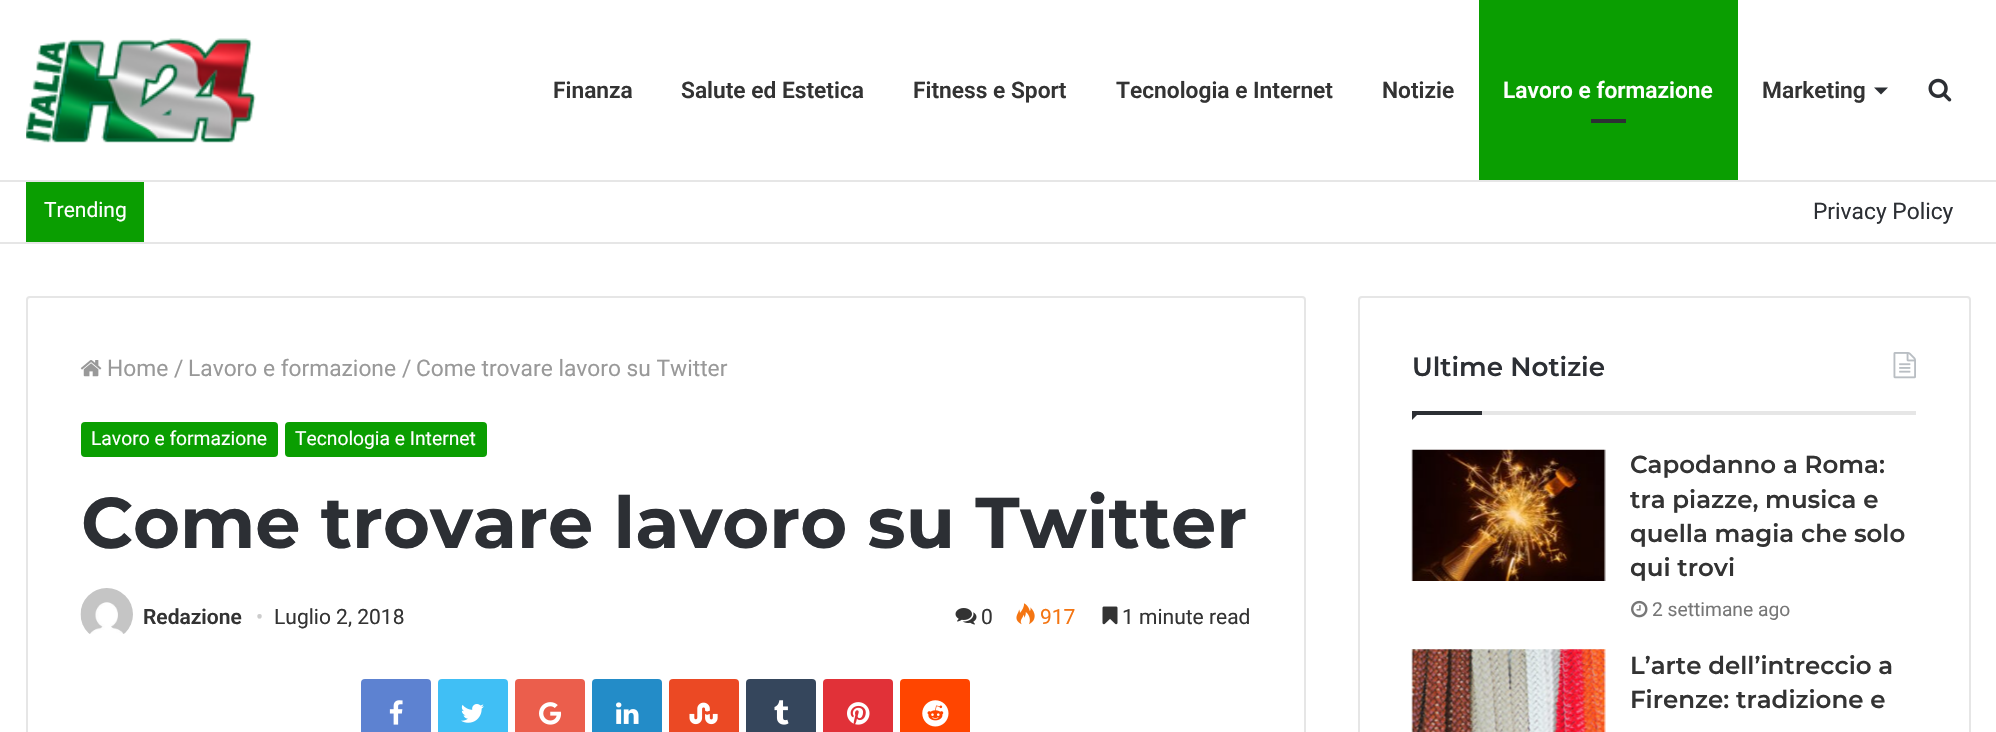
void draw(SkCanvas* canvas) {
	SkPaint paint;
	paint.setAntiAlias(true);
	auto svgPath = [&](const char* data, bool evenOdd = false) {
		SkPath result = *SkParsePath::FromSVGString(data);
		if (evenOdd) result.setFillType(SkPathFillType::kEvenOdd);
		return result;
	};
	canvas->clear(0xffffffff);
	paint.setColor(0xffe6e6e6);
	canvas->drawRect(SkRect::MakeXYWH(0, 180, 1996, 2), paint);
	canvas->drawImageRect(SkImages::DeferredFromEncodedData(SkData::MakeFromFileName("img1.png")), SkRect::MakeXYWH(26, 38, 230, 105), SkSamplingOptions());
	SkFont f1(fontMgr->matchFamilyStyle("Roboto", SkFontStyle(600, SkFontStyle::kNormal_Width, SkFontStyle::kUpright_Slant)), 22.75);
	f1.setSubpixel(true);
	paint.setColor(0xff333333);
	canvas->drawString("Finanza", 553, 98, f1, paint);
	canvas->drawString("Salute ed Estetica", 681, 98, f1, paint);
	canvas->drawString("Fitness e Sport", 913, 98, f1, paint);
	canvas->drawString("Tecnologia e Internet", 1116, 98, f1, paint);
	canvas->drawString("Notizie", 1382, 98, f1, paint);
	paint.setColor(0xff0a9e01);
	canvas->drawRect(SkRect::MakeXYWH(1479, 0, 259, 180), paint);
	paint.setColor(0xffffffff);
	canvas->drawString("Lavoro e formazione", 1503, 98, f1, paint);
	paint.setColor(0xff2c2f34);
	canvas->drawRect(SkRect::MakeXYWH(1591, 119, 35, 4), paint);
	paint.setColor(0xff333333);
	canvas->drawString("Marketing", 1762, 98, f1, paint);
	paint.setColor(0xff2c2f34);
	canvas->drawPath(svgPath("M1874 87.5H1888L1881 94.5Z"), paint);
	canvas->drawImageRect(SkImages::DeferredFromEncodedData(SkData::MakeFromFileName("img2.png")), SkRect::MakeXYWH(1928, 78, 24, 24), SkSamplingOptions());
	paint.setColor(0xffe6e6e6);
	canvas->drawRect(SkRect::MakeXYWH(0, 242, 1996, 2), paint);
	paint.setColor(0xff0a9e01);
	canvas->drawRect(SkRect::MakeXYWH(26, 182, 118, 60), paint);
	SkFont f2(fontMgr->matchFamilyStyle("Roboto", SkFontStyle::Normal()), 21);
	f2.setSubpixel(true);
	paint.setColor(0xffffffff);
	canvas->drawString("Trending", 44, 217, f2, paint);
	SkFont f3(fontMgr->matchFamilyStyle("Roboto", SkFontStyle::Normal()), 22.75);
	f3.setSubpixel(true);
	paint.setColor(0xff2c2f34);
	canvas->drawString("Privacy Policy", 1813, 219, f3, paint);
	paint.setStroke(true);
	paint.setStrokeWidth(2);
	paint.setColor(0xffe6e6e6);
	canvas->drawRoundRect(SkRect::MakeXYWH(27, 297, 1278, 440), 3, 3, paint);
	canvas->drawImageRect(SkImages::DeferredFromEncodedData(SkData::MakeFromFileName("img3.png")), SkRect::MakeXYWH(80, 360, 22, 17), SkSamplingOptions());
	paint.setStroke(false);
	paint.setColor(0xff999999);
	canvas->drawString("Home", 107, 376, f3, paint);
	canvas->drawString("/", 174, 376, f3, paint);
	canvas->drawString("Lavoro e formazione", 188, 376, f3, paint);
	canvas->drawString("/", 402, 376, f3, paint);
	canvas->drawString("Come trovare lavoro su Twitter", 416, 376, f3, paint);
	paint.setColor(0xff0a9e01);
	canvas->drawRoundRect(SkRect::MakeXYWH(81, 422, 197, 35), 4, 4, paint);
	SkFont f4(fontMgr->matchFamilyStyle("Roboto", SkFontStyle::Normal()), 19.25);
	f4.setSubpixel(true);
	paint.setColor(0xffffffff);
	canvas->drawString("Lavoro e formazione", 91, 445, f4, paint);
	paint.setColor(0xff0a9e01);
	canvas->drawRoundRect(SkRect::MakeXYWH(285, 422, 202, 35), 4, 4, paint);
	paint.setColor(0xffffffff);
	canvas->drawString("Tecnologia e Internet", 295, 445, f4, paint);
	SkFont f5(fontMgr->matchFamilyStyle("Montserrat", SkFontStyle::Bold()), 71.75);
	f5.setSubpixel(true);
	paint.setColor(0xff2c2f34);
	canvas->drawString("Come trovare lavoro su Twitter", 81, 548, f5, paint);
	canvas->drawImageRect(SkImages::DeferredFromEncodedData(SkData::MakeFromFileName("img4.png")), SkRect::MakeXYWH(80, 588, 53, 46), SkSamplingOptions());
	SkFont f6(fontMgr->matchFamilyStyle("Roboto", SkFontStyle(600, SkFontStyle::kNormal_Width, SkFontStyle::kUpright_Slant)), 21);
	f6.setSubpixel(true);
	paint.setColor(0xff333333);
	canvas->drawString("Redazione", 143, 624, f6, paint);
	paint.setColor(0xffcccccc);
	canvas->drawString("•", 256, 624, f2, paint);
	paint.setColor(0xff333333);
	canvas->drawString("Luglio 2, 2018", 274, 624, f2, paint);
	canvas->drawImageRect(SkImages::DeferredFromEncodedData(SkData::MakeFromFileName("img5.png")), SkRect::MakeXYWH(955, 608, 22, 17), SkSamplingOptions());
	canvas->drawString("0", 981, 624, f2, paint);
	canvas->drawImageRect(SkImages::DeferredFromEncodedData(SkData::MakeFromFileName("img6.png")), SkRect::MakeXYWH(1016, 603, 19, 22), SkSamplingOptions());
	paint.setColor(0xfff47512);
	canvas->drawString("917", 1040, 624, f2, paint);
	canvas->drawImageRect(SkImages::DeferredFromEncodedData(SkData::MakeFromFileName("img7.png")), SkRect::MakeXYWH(1102, 606, 16, 19), SkSamplingOptions());
	paint.setColor(0xff333333);
	canvas->drawString("1 minute read", 1122, 624, f2, paint);
	paint.setColor(0xff5d82d1);
	canvas->drawRoundRect(SkRect::MakeXYWH(361, 679, 70, 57), 4, 4, paint);
	canvas->drawImageRect(SkImages::DeferredFromEncodedData(SkData::MakeFromFileName("img8.png")), SkRect::MakeXYWH(389, 700, 14, 25), SkSamplingOptions());
	paint.setColor(0xff40bff5);
	canvas->drawRoundRect(SkRect::MakeXYWH(438, 679, 70, 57), 4, 4, paint);
	canvas->drawImageRect(SkImages::DeferredFromEncodedData(SkData::MakeFromFileName("img9.png")), SkRect::MakeXYWH(461, 704, 23, 19), SkSamplingOptions());
	paint.setColor(0xffeb5e4c);
	canvas->drawRoundRect(SkRect::MakeXYWH(515, 679, 70, 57), 4, 4, paint);
	canvas->drawImageRect(SkImages::DeferredFromEncodedData(SkData::MakeFromFileName("img10.png")), SkRect::MakeXYWH(539, 702, 23, 23), SkSamplingOptions());
	paint.setColor(0xff238cc8);
	canvas->drawRoundRect(SkRect::MakeXYWH(592, 679, 70, 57), 4, 4, paint);
	canvas->drawImageRect(SkImages::DeferredFromEncodedData(SkData::MakeFromFileName("img11.png")), SkRect::MakeXYWH(616, 702, 23, 22), SkSamplingOptions());
	paint.setColor(0xffeb4924);
	canvas->drawRoundRect(SkRect::MakeXYWH(669, 679, 70, 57), 4, 4, paint);
	canvas->drawImageRect(SkImages::DeferredFromEncodedData(SkData::MakeFromFileName("img12.png")), SkRect::MakeXYWH(689, 702, 29, 23), SkSamplingOptions());
	paint.setColor(0xff35465c);
	canvas->drawRoundRect(SkRect::MakeXYWH(746, 679, 70, 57), 4, 4, paint);
	canvas->drawImageRect(SkImages::DeferredFromEncodedData(SkData::MakeFromFileName("img13.png")), SkRect::MakeXYWH(774, 700, 15, 25), SkSamplingOptions());
	paint.setColor(0xffe13138);
	canvas->drawRoundRect(SkRect::MakeXYWH(823, 679, 70, 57), 4, 4, paint);
	canvas->drawImageRect(SkImages::DeferredFromEncodedData(SkData::MakeFromFileName("img14.png")), SkRect::MakeXYWH(847, 702, 23, 23), SkSamplingOptions());
	paint.setColor(0xffff4500);
	canvas->drawRoundRect(SkRect::MakeXYWH(900, 679, 70, 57), 4, 4, paint);
	canvas->drawImageRect(SkImages::DeferredFromEncodedData(SkData::MakeFromFileName("img15.png")), SkRect::MakeXYWH(922, 700, 27, 27), SkSamplingOptions());
	paint.setStroke(true);
	paint.setColor(0xffe6e6e6);
	canvas->drawRoundRect(SkRect::MakeXYWH(1359, 297, 611, 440), 3, 3, paint);
	paint.setStroke(false);
	canvas->drawRect(SkRect::MakeXYWH(1482, 411, 434, 4), paint);
	SkFont f7(fontMgr->matchFamilyStyle("Montserrat", SkFontStyle(600, SkFontStyle::kNormal_Width, SkFontStyle::kUpright_Slant)), 26.25);
	f7.setSubpixel(true);
	paint.setColor(0xff2c2f34);
	canvas->drawString("Ultime Notizie", 1412, 376, f7, paint);
	canvas->drawImageRect(SkImages::DeferredFromEncodedData(SkData::MakeFromFileName("img16.png")), SkRect::MakeXYWH(1893, 352, 23, 27), SkSamplingOptions());
	canvas->drawPath(svgPath("M1412 411H1421L1412 420Z"), paint);
	canvas->drawRect(SkRect::MakeXYWH(1412, 411, 70, 4), paint);
	canvas->drawImageRect(SkImages::DeferredFromEncodedData(SkData::MakeFromFileName("img17.png")), SkRect::MakeXYWH(1411, 449, 195, 132), SkSamplingOptions());
	SkFont f8(fontMgr->matchFamilyStyle("Montserrat", SkFontStyle(600, SkFontStyle::kNormal_Width, SkFontStyle::kUpright_Slant)), 24.5);
	f8.setSubpixel(true);
	paint.setColor(0xff333333);
	canvas->drawString("Capodanno a Roma:", 1630, 473, f8, paint);
	canvas->drawString("tra piazze, musica e", 1630, 508, f8, paint);
	canvas->drawString("quella magia che solo", 1630, 542, f8, paint);
	canvas->drawString("qui trovi", 1630, 576, f8, paint);
	canvas->drawImageRect(SkImages::DeferredFromEncodedData(SkData::MakeFromFileName("img18.png")), SkRect::MakeXYWH(1631, 600, 17, 18), SkSamplingOptions());
	paint.setColor(0xff777777);
	canvas->drawString("2 settimane ago", 1652, 616, f4, paint);
	canvas->drawImageRect(SkImages::DeferredFromEncodedData(SkData::MakeFromFileName("img19.png")), SkRect::MakeXYWH(1411, 649, 195, 83), SkSamplingOptions());
	paint.setColor(0xff333333);
	canvas->drawString("L’arte dell’intreccio a", 1630, 674, f8, paint);
	canvas->drawString("Firenze: tradizione e", 1630, 708, f8, paint);
}
